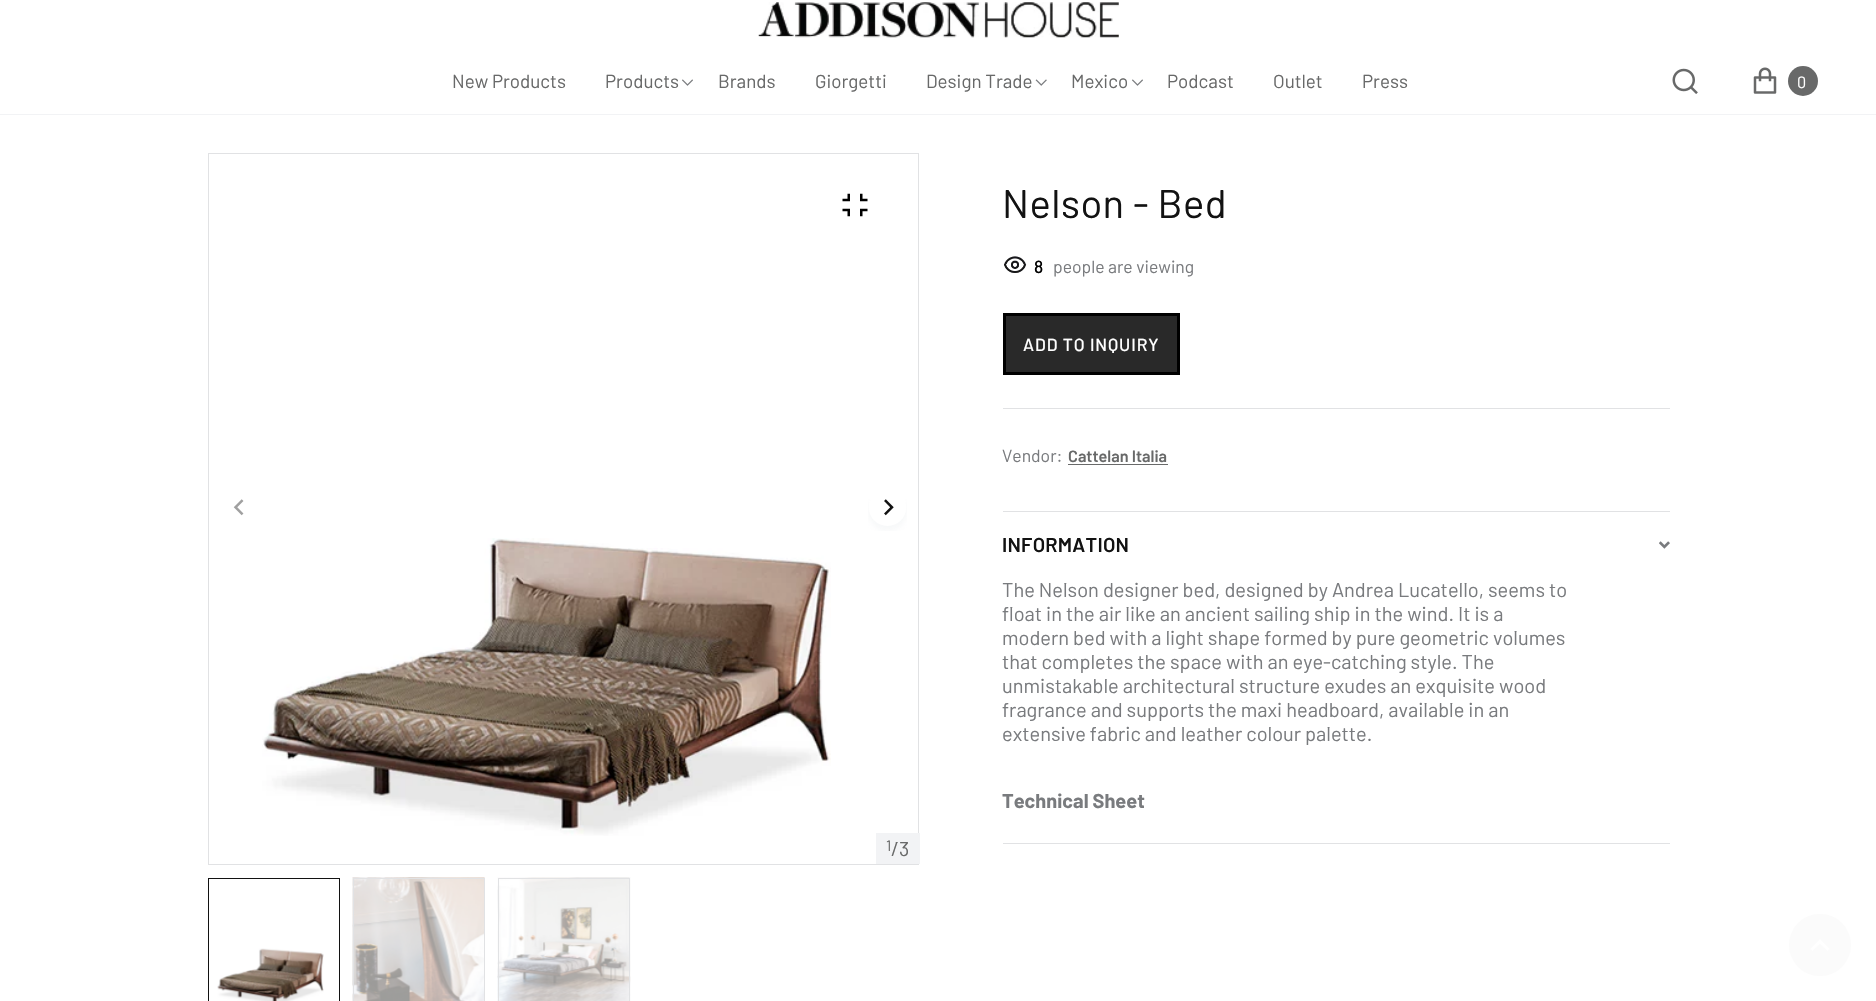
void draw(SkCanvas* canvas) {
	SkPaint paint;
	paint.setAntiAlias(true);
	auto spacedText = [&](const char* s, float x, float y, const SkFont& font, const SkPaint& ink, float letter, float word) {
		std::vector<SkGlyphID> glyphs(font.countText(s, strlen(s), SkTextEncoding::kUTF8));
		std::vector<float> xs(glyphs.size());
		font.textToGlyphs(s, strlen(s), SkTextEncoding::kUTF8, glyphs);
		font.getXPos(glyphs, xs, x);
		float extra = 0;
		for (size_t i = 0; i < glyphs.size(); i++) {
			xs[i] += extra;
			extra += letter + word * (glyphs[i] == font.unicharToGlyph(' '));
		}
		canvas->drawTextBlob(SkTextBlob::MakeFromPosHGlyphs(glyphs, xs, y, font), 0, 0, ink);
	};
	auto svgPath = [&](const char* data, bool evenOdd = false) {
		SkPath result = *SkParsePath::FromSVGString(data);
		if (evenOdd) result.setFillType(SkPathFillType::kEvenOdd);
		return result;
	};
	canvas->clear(0xffffffff);
	paint.setColor(0xfff2f3f5);
	canvas->drawRect(SkRect::MakeXYWH(0, 114, 1876, 1), paint);
	canvas->drawImageRect(SkImages::DeferredFromEncodedData(SkData::MakeFromFileName("img1.png")), SkRect::MakeXYWH(758, 2, 361, 36), SkSamplingOptions());
	SkFont f1(fontMgr->matchFamilyStyle("Barlow", SkFontStyle::Normal()), 18.75);
	f1.setSubpixel(true);
	paint.setColor(0xff686969);
	canvas->drawString("New Products", 452, 88, f1, paint);
	canvas->drawString("Products", 605, 88, f1, paint);
	canvas->drawImageRect(SkImages::DeferredFromEncodedData(SkData::MakeFromFileName("img2.png")), SkRect::MakeXYWH(682, 79, 11, 7), SkSamplingOptions());
	canvas->drawString("Brands", 718, 88, f1, paint);
	canvas->drawString("Giorgetti", 815, 88, f1, paint);
	canvas->drawString("Design Trade", 926, 88, f1, paint);
	canvas->drawImageRect(SkImages::DeferredFromEncodedData(SkData::MakeFromFileName("img3.png")), SkRect::MakeXYWH(1035, 79, 12, 7), SkSamplingOptions());
	canvas->drawString("Mexico", 1071, 88, f1, paint);
	canvas->drawImageRect(SkImages::DeferredFromEncodedData(SkData::MakeFromFileName("img2.png")), SkRect::MakeXYWH(1132, 79, 11, 7), SkSamplingOptions());
	canvas->drawString("Podcast", 1167, 88, f1, paint);
	canvas->drawString("Outlet", 1273, 88, f1, paint);
	canvas->drawString("Press", 1362, 88, f1, paint);
	canvas->drawImageRect(SkImages::DeferredFromEncodedData(SkData::MakeFromFileName("img4.png")), SkRect::MakeXYWH(1672, 68, 26, 26), SkSamplingOptions());
	canvas->drawImageRect(SkImages::DeferredFromEncodedData(SkData::MakeFromFileName("img5.png")), SkRect::MakeXYWH(1753, 67, 24, 27), SkSamplingOptions());
	canvas->drawCircle(1803, 81, 15, paint);
	SkFont f2(fontMgr->matchFamilyStyle("Barlow", SkFontStyle::Normal()), 16.25);
	f2.setSubpixel(true);
	paint.setColor(0xffffffff);
	canvas->drawString("0", 1797, 88, f2, paint);
	SkFont f3(fontMgr->matchFamilyStyle("Barlow", SkFontStyle::Normal()), 40);
	f3.setSubpixel(true);
	paint.setColor(0xff121212);
	spacedText("Nelson - Bed", 1002, 218, f3, paint, 0.4, 0);
	canvas->drawImageRect(SkImages::DeferredFromEncodedData(SkData::MakeFromFileName("img6.png")), SkRect::MakeXYWH(1004, 256, 23, 17), SkSamplingOptions());
	SkFont f4(fontMgr->matchFamilyStyle("Barlow", SkFontStyle(500, SkFontStyle::kNormal_Width, SkFontStyle::kUpright_Slant)), 17.5);
	f4.setSubpixel(true);
	paint.setColor(0xff000000);
	canvas->drawString("8", 1034, 273, f4, paint);
	SkFont f5(fontMgr->matchFamilyStyle("Barlow", SkFontStyle::Normal()), 17.5);
	f5.setSubpixel(true);
	paint.setColor(0xff797b7e);
	canvas->drawString("people are viewing", 1053, 273, f5, paint);
	paint.setColor(0xff292929);
	canvas->drawRect(SkRect::MakeXYWH(1004.5, 314.5, 174, 59), paint);
	paint.setStroke(true);
	paint.setStrokeWidth(3);
	paint.setColor(0xff000000);
	canvas->drawRect(SkRect::MakeXYWH(1004.5, 314.5, 174, 59), paint);
	paint.setStroke(false);
	paint.setColor(0xffffffff);
	spacedText("ADD TO INQUIRY", 1023, 351, f4, paint, 0.9, 0);
	paint.setColor(0xffe1e2e4);
	canvas->drawRect(SkRect::MakeXYWH(1003, 408, 667, 1), paint);
	paint.setColor(0xff797b7e);
	canvas->drawString("Vendor:", 1002, 462, f5, paint);
	SkFont f6(fontMgr->matchFamilyStyle("Barlow", SkFontStyle(600, SkFontStyle::kNormal_Width, SkFontStyle::kUpright_Slant)), 16.25);
	f6.setSubpixel(true);
	paint.setColor(0xff686969);
	canvas->drawString("Cattelan Italia", 1068, 462, f6, paint);
	canvas->drawRect(SkRect::MakeXYWH(1068, 464, 100, 1), paint);
	paint.setColor(0xffe1e2e4);
	canvas->drawRect(SkRect::MakeXYWH(1003, 511, 667, 1), paint);
	canvas->drawRect(SkRect::MakeXYWH(1003, 843, 667, 1), paint);
	SkFont f7(fontMgr->matchFamilyStyle("Barlow", SkFontStyle(600, SkFontStyle::kNormal_Width, SkFontStyle::kUpright_Slant)), 20);
	f7.setSubpixel(true);
	paint.setColor(0xff121212);
	spacedText("INFORMATION", 1002, 552, f7, paint, 0.25, 0);
	canvas->drawImageRect(SkImages::DeferredFromEncodedData(SkData::MakeFromFileName("img7.png")), SkRect::MakeXYWH(1659, 541, 11, 8), SkSamplingOptions());
	SkFont f8(fontMgr->matchFamilyStyle("Barlow", SkFontStyle::Normal()), 20);
	f8.setSubpixel(true);
	paint.setColor(0xff797b7e);
	canvas->drawString("The Nelson designer bed, designed by Andrea Lucatello, seems to", 1002, 597, f8, paint);
	canvas->drawString("float in the air like an ancient sailing ship in the wind. It is a", 1002, 621, f8, paint);
	canvas->drawString("modern bed with a light shape formed by pure geometric volumes", 1002, 645, f8, paint);
	canvas->drawString("that completes the space with an eye-catching style. The", 1002, 669, f8, paint);
	canvas->drawString("unmistakable architectural structure exudes an exquisite wood", 1002, 693, f8, paint);
	canvas->drawString("fragrance and supports the maxi headboard, available in an", 1002, 717, f8, paint);
	canvas->drawString("extensive fabric and leather colour palette.", 1002, 741, f8, paint);
	SkFont f9(fontMgr->matchFamilyStyle("Barlow", SkFontStyle::Bold()), 20);
	f9.setSubpixel(true);
	canvas->drawString("Technical Sheet", 1002, 808, f9, paint);
	canvas->drawImageRect(SkImages::DeferredFromEncodedData(SkData::MakeFromFileName("img8.png")), SkRect::MakeXYWH(262, 538, 569, 298), SkSamplingOptions());
	paint.setStroke(true);
	paint.setStrokeWidth(1);
	paint.setColor(0xffe1e2e4);
	canvas->drawRect(SkRect::MakeXYWH(208.5, 153.5, 710, 711), paint);
	canvas->drawImageRect(SkImages::DeferredFromEncodedData(SkData::MakeFromFileName("img9.png")), SkRect::MakeXYWH(842, 193, 26, 24), SkSamplingOptions());
	canvas->drawImageRect(SkImages::DeferredFromEncodedData(SkData::MakeFromFileName("img10.png")), SkRect::MakeXYWH(233, 499, 11, 17), SkSamplingOptions());
	canvas->drawImageRect(SkImages::DeferredFromEncodedData(SkData::MakeFromFileName("img11.png")), SkRect::MakeXYWH(868, 499, 39, 32), SkSamplingOptions());
	paint.setStroke(false);
	paint.setColor(0xfff2f3f5);
	canvas->drawRect(SkRect::MakeXYWH(876, 833, 44, 31), paint);
	SkFont f10(fontMgr->matchFamilyStyle("Barlow", SkFontStyle::Normal()), 15);
	f10.setSubpixel(true);
	paint.setColor(0xff686969);
	canvas->drawString("1", 886, 851, f10, paint);
	canvas->drawString("/3", 891, 856, f8, paint);
	canvas->drawImageRect(SkImages::DeferredFromEncodedData(SkData::MakeFromFileName("img12.png")), SkRect::MakeXYWH(217, 948, 107, 53), SkSamplingOptions());
	paint.setStroke(true);
	paint.setColor(0xff121212);
	canvas->drawRect(SkRect::MakeXYWH(208.5, 878.5, 131, 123), paint);
	canvas->drawImageRect(SkImages::DeferredFromEncodedData(SkData::MakeFromFileName("img13.png")), SkRect::MakeXYWH(352, 877, 133, 124), SkSamplingOptions());
	paint.setColor(0xffe1e2e4);
	canvas->drawRect(SkRect::MakeXYWH(353.5, 878.5, 131, 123), paint);
	canvas->drawImageRect(SkImages::DeferredFromEncodedData(SkData::MakeFromFileName("img14.png")), SkRect::MakeXYWH(497, 877, 134, 124), SkSamplingOptions());
	canvas->drawRect(SkRect::MakeXYWH(498.5, 878.5, 131, 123), paint);
	paint.setStroke(false);
	paint.setColor(0xfffbfbfb);
	canvas->drawCircle(1820, 945, 31, paint);
	paint.setColor(0xffffffff);
	canvas->drawPath(svgPath("M1830 949L1827.5 951L1820 944L1812.5 951L1810 949L1820 939Z"), paint);
}
